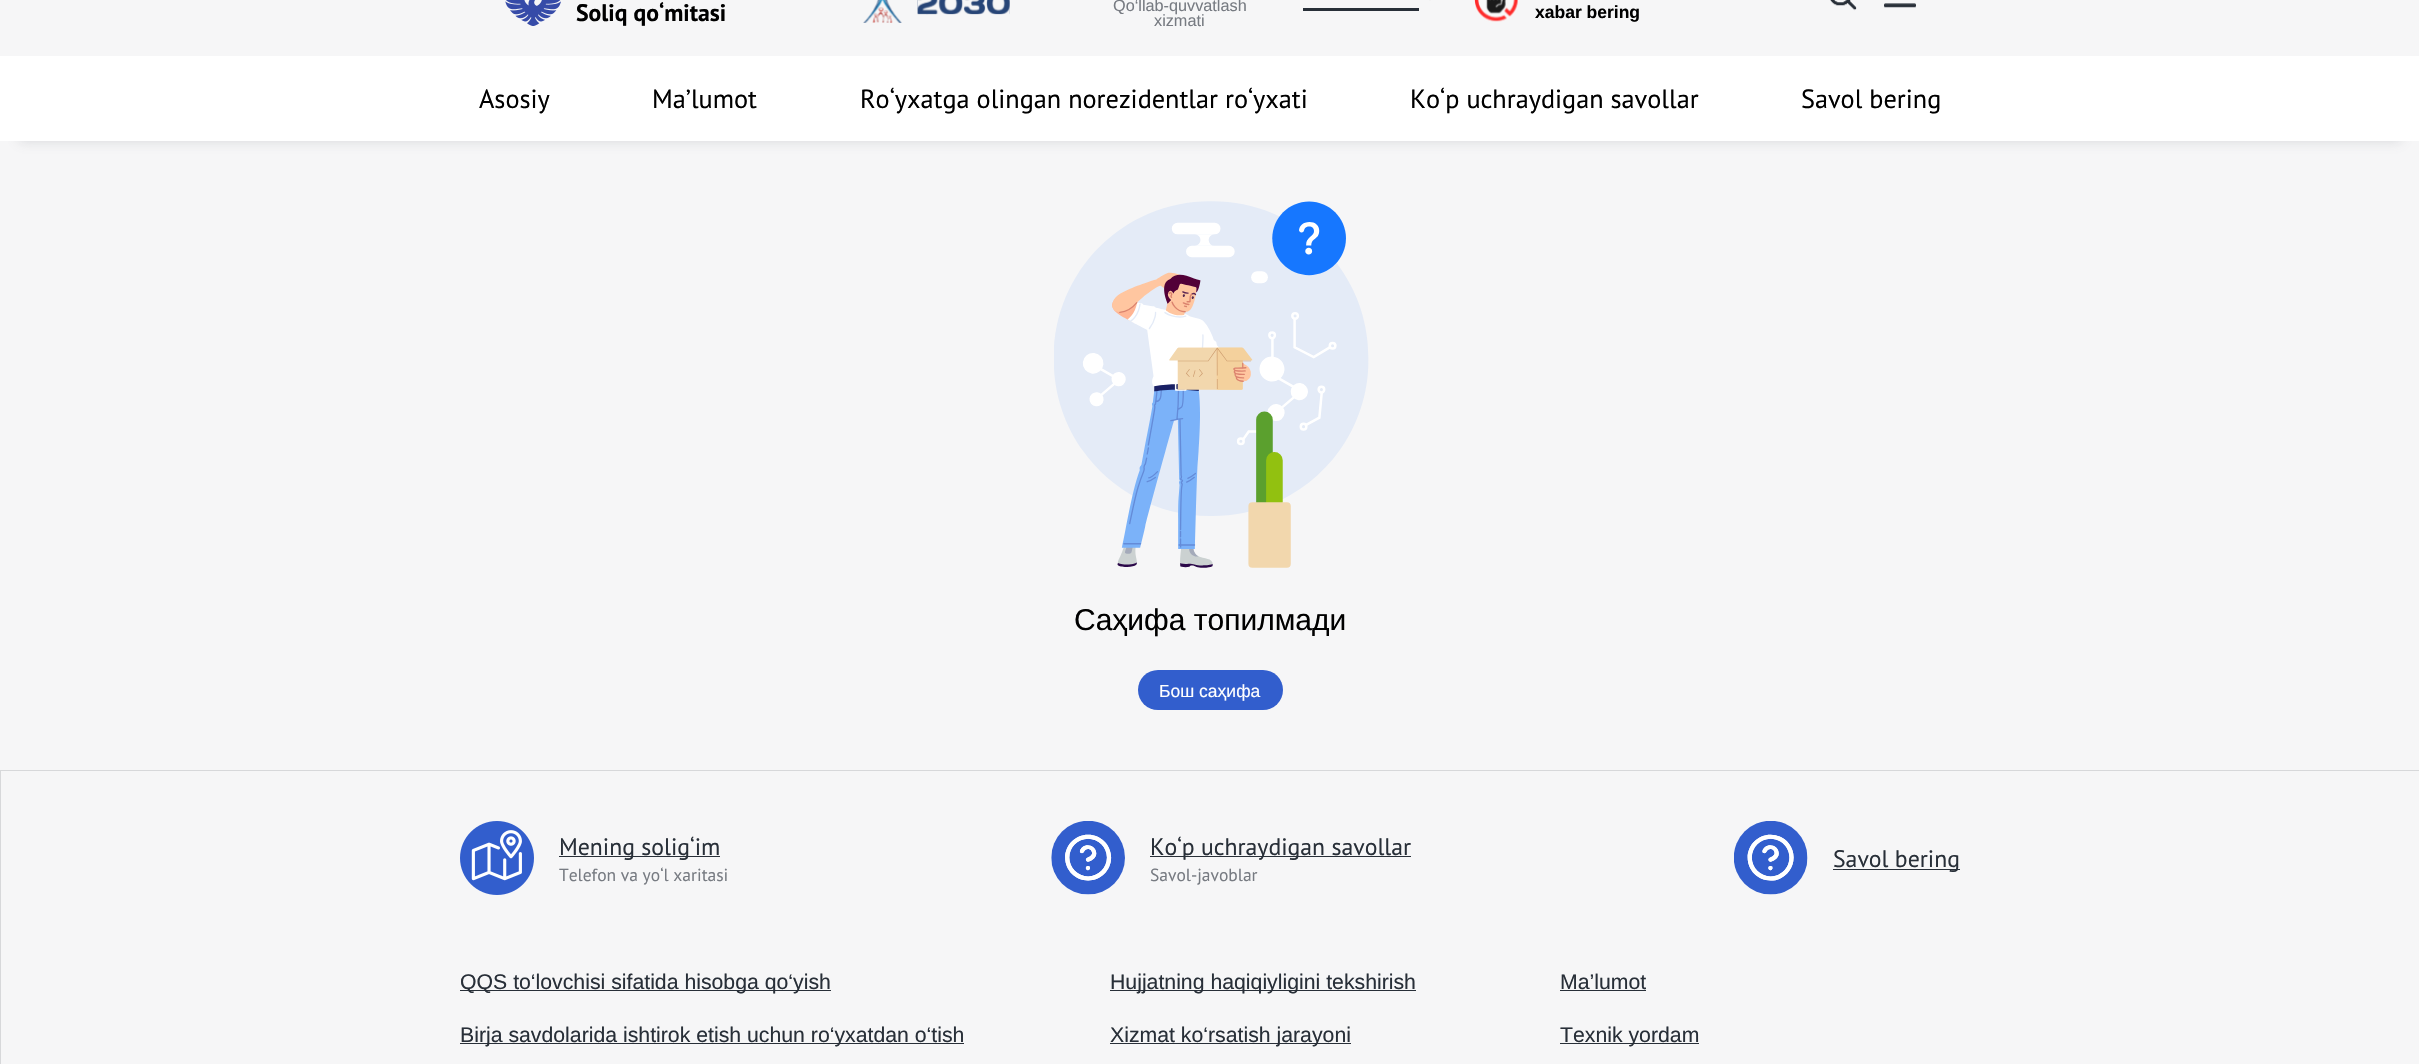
void draw(SkCanvas* canvas) {
	SkPaint paint;
	paint.setAntiAlias(true);
	canvas->clear(0xfff6f6f7);
	canvas->drawImageRect(SkImages::DeferredFromEncodedData(SkData::MakeFromFileName("img1.png")), SkRect::MakeXYWH(505, 0, 56, 26), SkSamplingOptions());
	SkFont f1(fontMgr->matchFamilyStyle("PT Sans", SkFontStyle::Bold()), 23.75);
	f1.setSubpixel(true);
	paint.setColor(0xff000000);
	canvas->drawString("Soliq qo‘mitasi", 576, 21, f1, paint);
	canvas->drawImageRect(SkImages::DeferredFromEncodedData(SkData::MakeFromFileName("img2.png")), SkRect::MakeXYWH(863, 0, 39, 23), SkSamplingOptions());
	canvas->drawImageRect(SkImages::DeferredFromEncodedData(SkData::MakeFromFileName("img3.png")), SkRect::MakeXYWH(917, 0, 93, 15), SkSamplingOptions());
	SkFont f2(fontMgr->matchFamilyStyle("Liberation Sans", SkFontStyle::Normal()), 16.25);
	f2.setSubpixel(true);
	paint.setColor(0xff777b82);
	canvas->drawString("Qo‘llab-quvvatlash", 1113, 11, f2, paint);
	canvas->drawString("xizmati", 1154, 26, f2, paint);
	paint.setColor(0xfff2f2f3);
	canvas->drawRect(SkRect::MakeXYWH(1429, 0, 2, 1), paint);
	paint.setColor(0xff282f38);
	canvas->drawRect(SkRect::MakeXYWH(1303, 8, 116, 3), paint);
	canvas->drawImageRect(SkImages::DeferredFromEncodedData(SkData::MakeFromFileName("img4.png")), SkRect::MakeXYWH(1474, 0, 44, 22), SkSamplingOptions());
	SkFont f3(fontMgr->matchFamilyStyle("Liberation Sans", SkFontStyle::Bold()), 17.5);
	f3.setSubpixel(true);
	paint.setColor(0xff000000);
	canvas->drawString("xabar bering", 1535, 18, f3, paint);
	canvas->drawImageRect(SkImages::DeferredFromEncodedData(SkData::MakeFromFileName("img5.png")), SkRect::MakeXYWH(1830, 0, 27, 11), SkSamplingOptions());
	canvas->drawImageRect(SkImages::DeferredFromEncodedData(SkData::MakeFromFileName("img6.png")), SkRect::MakeXYWH(1884, 3, 32, 5), SkSamplingOptions());
	paint.setColor(0x42777b82);
	paint.setMaskFilter(SkMaskFilter::MakeBlur(kNormal_SkBlurStyle, 6));
	canvas->drawRect(SkRect::MakeXYWH(19, 94, 2382, 47), paint);
	paint.setMaskFilter(nullptr);
	paint.setColor(0xffffffff);
	canvas->drawRect(SkRect::MakeXYWH(0, 56, 2419, 85), paint);
	SkFont f4(fontMgr->matchFamilyStyle("PT Sans", SkFontStyle::Normal()), 26.25);
	f4.setSubpixel(true);
	paint.setColor(0xff000000);
	canvas->drawString("Asosiy", 479, 108, f4, paint);
	canvas->drawString("Ma’lumot", 652, 108, f4, paint);
	canvas->drawString("Ro‘yxatga olingan norezidentlar ro‘yxati", 860, 108, f4, paint);
	canvas->drawString("Ko‘p uchraydigan savollar", 1410, 108, f4, paint);
	canvas->drawString("Savol bering", 1801, 108, f4, paint);
	canvas->drawImageRect(SkImages::DeferredFromEncodedData(SkData::MakeFromFileName("img7.png")), SkRect::MakeXYWH(1054, 201, 315, 367), SkSamplingOptions());
	SkFont f5(fontMgr->matchFamilyStyle("Liberation Sans", SkFontStyle::Normal()), 30);
	f5.setSubpixel(true);
	canvas->drawString("Саҳифа топилмади", 1074, 630, f5, paint);
	paint.setColor(0xff325ecd);
	canvas->drawRoundRect(SkRect::MakeXYWH(1138, 670, 145, 40), 20, 20, paint);
	SkFont f6(fontMgr->matchFamilyStyle("Liberation Sans", SkFontStyle::Normal()), 17.5);
	f6.setSubpixel(true);
	paint.setColor(0xffffffff);
	canvas->drawString("Бош саҳифа", 1159, 697, f6, paint);
	paint.setStroke(true);
	paint.setStrokeWidth(1);
	paint.setColor(0xffd7d8da);
	canvas->drawRect(SkRect::MakeXYWH(0.5, 770.5, 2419, 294), paint);
	canvas->drawImageRect(SkImages::DeferredFromEncodedData(SkData::MakeFromFileName("img8.png")), SkRect::MakeXYWH(460, 821, 74, 74), SkSamplingOptions());
	paint.setStroke(false);
	paint.setColor(0xff282f38);
	canvas->drawRect(SkRect::MakeXYWH(559, 856, 161, 1), paint);
	SkFont f7(fontMgr->matchFamilyStyle("PT Sans", SkFontStyle::Normal()), 23.75);
	f7.setSubpixel(true);
	canvas->drawString("Mening solig‘im", 559, 855, f7, paint);
	SkFont f8(fontMgr->matchFamilyStyle("PT Sans", SkFontStyle::Normal()), 17.5);
	f8.setSubpixel(true);
	paint.setColor(0xff777b82);
	canvas->drawString("Telefon va yo‘l xaritasi", 559, 881, f8, paint);
	canvas->drawImageRect(SkImages::DeferredFromEncodedData(SkData::MakeFromFileName("img9.png")), SkRect::MakeXYWH(1051, 821, 74, 74), SkSamplingOptions());
	paint.setColor(0xff282f38);
	canvas->drawRect(SkRect::MakeXYWH(1150, 856, 261, 1), paint);
	canvas->drawString("Ko‘p uchraydigan savollar", 1150, 855, f7, paint);
	paint.setColor(0xff777b82);
	canvas->drawString("Savol-javoblar", 1150, 881, f8, paint);
	canvas->drawImageRect(SkImages::DeferredFromEncodedData(SkData::MakeFromFileName("img10.png")), SkRect::MakeXYWH(1734, 821, 74, 74), SkSamplingOptions());
	paint.setColor(0xff282f38);
	canvas->drawRect(SkRect::MakeXYWH(1833, 869, 127, 1), paint);
	canvas->drawString("Savol bering", 1833, 867, f7, paint);
	canvas->drawRect(SkRect::MakeXYWH(460, 990, 371, 1), paint);
	SkFont f9(fontMgr->matchFamilyStyle("Liberation Sans", SkFontStyle::Normal()), 21.25);
	f9.setSubpixel(true);
	canvas->drawString("QQS to‘lovchisi sifatida hisobga qo‘yish", 460, 989, f9, paint);
	canvas->drawRect(SkRect::MakeXYWH(460, 1043, 504, 1), paint);
	canvas->drawString("Birja savdolarida ishtirok etish uchun ro‘yxatdan o‘tish", 460, 1042, f9, paint);
	canvas->drawRect(SkRect::MakeXYWH(1110, 990, 306, 1), paint);
	canvas->drawString("Hujjatning haqiqiyligini tekshirish", 1110, 989, f9, paint);
	canvas->drawRect(SkRect::MakeXYWH(1110, 1043, 241, 1), paint);
	canvas->drawString("Xizmat ko‘rsatish jarayoni", 1110, 1042, f9, paint);
	canvas->drawString("Ma’lumot", 1560, 989, f9, paint);
	canvas->drawRect(SkRect::MakeXYWH(1560, 990, 86, 1), paint);
	canvas->drawRect(SkRect::MakeXYWH(1560, 1043, 139, 1), paint);
	canvas->drawString("Texnik yordam", 1560, 1042, f9, paint);
}
